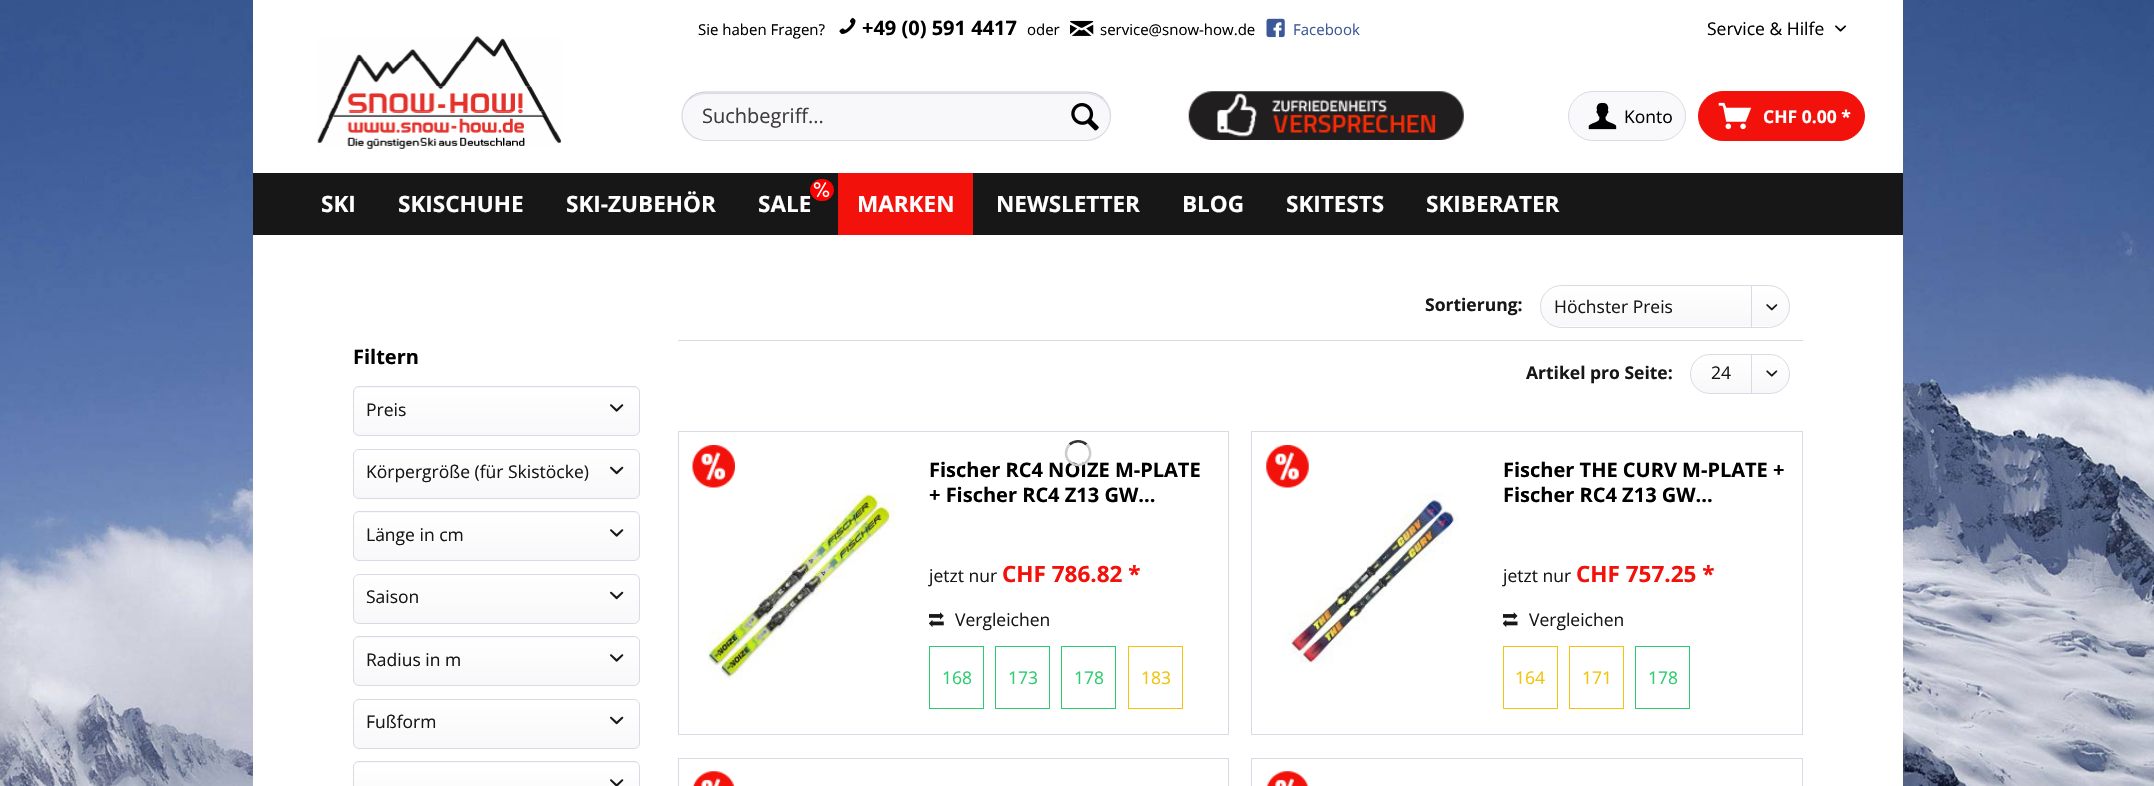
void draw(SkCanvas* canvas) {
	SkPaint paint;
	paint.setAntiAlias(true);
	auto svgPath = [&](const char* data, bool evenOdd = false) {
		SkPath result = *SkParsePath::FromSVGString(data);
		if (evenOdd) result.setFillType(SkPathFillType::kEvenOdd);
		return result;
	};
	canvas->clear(0xffffffff);
	canvas->drawImageRect(SkImages::DeferredFromEncodedData(SkData::MakeFromFileName("img1.png")), SkRect::MakeXYWH(0, 0, 2154, 786), SkSamplingOptions());
	paint.setColor(0xffffffff);
	canvas->drawRect(SkRect::MakeXYWH(253, 0, 1650, 786), paint);
	canvas->drawImageRect(SkImages::DeferredFromEncodedData(SkData::MakeFromFileName("img2.png")), SkRect::MakeXYWH(317, 36, 245, 113), SkSamplingOptions());
	SkFont f1(fontMgr->matchFamilyStyle("Open Sans", SkFontStyle::Normal()), 15);
	f1.setSubpixel(true);
	paint.setColor(0xff000000);
	canvas->drawString("Sie haben Fragen?", 698, 35, f1, paint);
	canvas->drawImageRect(SkImages::DeferredFromEncodedData(SkData::MakeFromFileName("img3.png")), SkRect::MakeXYWH(839, 17, 17, 17), SkSamplingOptions());
	SkFont f2(fontMgr->matchFamilyStyle("Open Sans", SkFontStyle::Bold()), 20);
	f2.setSubpixel(true);
	canvas->drawString("+49 (0) 591 4417", 862, 35, f2, paint);
	canvas->drawString("oder", 1027, 35, f1, paint);
	canvas->drawImageRect(SkImages::DeferredFromEncodedData(SkData::MakeFromFileName("img4.png")), SkRect::MakeXYWH(1070, 20, 24, 16), SkSamplingOptions());
	canvas->drawString("service@snow-how.de", 1100, 35, f1, paint);
	canvas->drawImageRect(SkImages::DeferredFromEncodedData(SkData::MakeFromFileName("img5.png")), SkRect::MakeXYWH(1266, 18, 19, 20), SkSamplingOptions());
	paint.setColor(0xff3b5998);
	canvas->drawString("Facebook", 1293, 35, f1, paint);
	SkFont f3(fontMgr->matchFamilyStyle("Open Sans", SkFontStyle::Normal()), 17.5);
	f3.setSubpixel(true);
	paint.setColor(0xff000000);
	canvas->drawString("Service & Hilfe", 1707, 35, f3, paint);
	canvas->drawImageRect(SkImages::DeferredFromEncodedData(SkData::MakeFromFileName("img6.png")), SkRect::MakeXYWH(1835, 25, 11, 7), SkSamplingOptions());
	paint.setColor(0xfff8f8fa);
	canvas->drawRoundRect(SkRect::MakeXYWH(681, 91, 430, 50), 25, 25, paint);
	paint.setColor(0xffdadae5);
	canvas->drawPath(svgPath("M706 94H1086C1099 94 1110 104 1110 117V116C1110 104 1099 93 1086 93H706C699 93 693 96 689 101C693 97 699 94 706 94Z"), paint);
	paint.setStroke(true);
	paint.setStrokeWidth(1.2);
	paint.setColor(0xffcbcbda);
	canvas->drawPath(svgPath("M689 99C693.5 94.5 700 92 706 92H1086C1092.5 92 1099 94.5 1103.5 99"), paint);
	paint.setColor(0xffdadae5);
	canvas->drawPath(svgPath("M1103.5 99C1109 104.5 1111.5 113 1110 121C1108 132.5 1097.5 140.5 1086 140.5H706L701.5 140C682.5 136.5 675.5 112.5 689 99"), paint);
	SkFont f4(fontMgr->matchFamilyStyle("Open Sans", SkFontStyle::Normal()), 20);
	f4.setSubpixel(true);
	paint.setStroke(false);
	paint.setColor(0xff3f3c3c);
	canvas->drawString("Suchbegriff...", 702, 123, f4, paint);
	canvas->drawImageRect(SkImages::DeferredFromEncodedData(SkData::MakeFromFileName("img7.png")), SkRect::MakeXYWH(1071, 103, 28, 28), SkSamplingOptions());
	canvas->drawImageRect(SkImages::DeferredFromEncodedData(SkData::MakeFromFileName("img8.png")), SkRect::MakeXYWH(1188, 91, 276, 49), SkSamplingOptions());
	paint.setColor(0xfff9f9fb);
	canvas->drawRoundRect(SkRect::MakeXYWH(1568.5, 91.5, 117, 49), 24.5, 24.5, paint);
	paint.setStroke(true);
	paint.setStrokeWidth(1);
	paint.setColor(0xffdadae5);
	canvas->drawRoundRect(SkRect::MakeXYWH(1568.5, 91.5, 117, 49), 24.5, 24.5, paint);
	canvas->drawImageRect(SkImages::DeferredFromEncodedData(SkData::MakeFromFileName("img9.png")), SkRect::MakeXYWH(1588, 102, 29, 28), SkSamplingOptions());
	paint.setStroke(false);
	paint.setColor(0xff000000);
	canvas->drawString("Konto", 1624, 123, f3, paint);
	paint.setColor(0xfff2120b);
	canvas->drawRoundRect(SkRect::MakeXYWH(1698.5, 91.5, 166, 49), 24.5, 24.5, paint);
	paint.setStroke(true);
	canvas->drawRoundRect(SkRect::MakeXYWH(1698.5, 91.5, 166, 49), 24.5, 24.5, paint);
	canvas->drawImageRect(SkImages::DeferredFromEncodedData(SkData::MakeFromFileName("img10.png")), SkRect::MakeXYWH(1718, 102, 34, 28), SkSamplingOptions());
	SkFont f5(fontMgr->matchFamilyStyle("Open Sans", SkFontStyle::Bold()), 17.5);
	f5.setSubpixel(true);
	paint.setStroke(false);
	paint.setColor(0xffffffff);
	canvas->drawString("CHF 0.00 *", 1763, 123, f5, paint);
	paint.setColor(0xff181717);
	canvas->drawRect(SkRect::MakeXYWH(253, 173, 1650, 62), paint);
	SkFont f6(fontMgr->matchFamilyStyle("Open Sans", SkFontStyle::Bold()), 22.5);
	f6.setSubpixel(true);
	paint.setColor(0xffffffff);
	canvas->drawString("SKI", 321, 212, f6, paint);
	canvas->drawString("SKISCHUHE", 398, 212, f6, paint);
	canvas->drawString("SKI-ZUBEHÖR", 566, 212, f6, paint);
	paint.setColor(0xffff0000);
	canvas->drawRoundRect(SkRect::MakeXYWH(810.5, 179.5, 23, 21), 10.5, 10.5, paint);
	paint.setStroke(true);
	canvas->drawRoundRect(SkRect::MakeXYWH(810.5, 179.5, 23, 21), 10.5, 10.5, paint);
	canvas->drawImageRect(SkImages::DeferredFromEncodedData(SkData::MakeFromFileName("img11.png")), SkRect::MakeXYWH(813, 182, 17, 16), SkSamplingOptions());
	paint.setStroke(false);
	paint.setColor(0xffffffff);
	canvas->drawString("SALE", 758, 212, f6, paint);
	paint.setColor(0xfff2120b);
	canvas->drawRect(SkRect::MakeXYWH(838, 173, 135, 62), paint);
	paint.setColor(0xffffffff);
	canvas->drawString("MARKEN", 857, 212, f6, paint);
	canvas->drawString("NEWSLETTER", 996, 212, f6, paint);
	canvas->drawString("BLOG", 1182, 212, f6, paint);
	canvas->drawString("SKITESTS", 1286, 212, f6, paint);
	canvas->drawString("SKIBERATER", 1426, 212, f6, paint);
	paint.setColor(0xff000000);
	canvas->drawString("Filtern", 353, 364, f2, paint);
	canvas->save();
	canvas->clipPath(svgPath("M359 386H634C637.5 386 640 388.5 640 392V430C640 433.5 637.5 436 634 436H359C355.5 436 353 433.5 353 430V392C353 388.5 355.5 386 359 386Z"), true);
	{
		const SkColor colors[] = {0xffffffff, 0xfff8f8fa};
		const float stops[] = {0, 1};
		const SkPoint ends[] = {{496, 340}, {496, 388}};
		paint.setShader(SkGradientShader::MakeLinear(ends, colors, stops, 2, SkTileMode::kClamp));
		paint.setAlpha(255);
	}
	canvas->drawRect(SkRect::MakeXYWH(353, 386, 287, 2), paint);
	{
		const SkColor colors[] = {0xffffffff, 0xfff8f8fa};
		const float stops[] = {0, 1};
		const SkPoint ends[] = {{496, 388}, {496, 435}};
		paint.setShader(SkGradientShader::MakeLinear(ends, colors, stops, 2, SkTileMode::kClamp));
		paint.setAlpha(255);
	}
	canvas->drawRect(SkRect::MakeXYWH(353, 388, 287, 47), paint);
	canvas->restore();
	paint.setStroke(true);
	paint.setShader(nullptr);
	paint.setColor(0xffdadae5);
	canvas->drawRoundRect(SkRect::MakeXYWH(353.5, 386.5, 286, 49), 5.5, 5.5, paint);
	paint.setStroke(false);
	paint.setColor(0xff181717);
	canvas->drawString("Preis", 366, 416, f3, paint);
	canvas->drawImageRect(SkImages::DeferredFromEncodedData(SkData::MakeFromFileName("img12.png")), SkRect::MakeXYWH(610, 404, 14, 8), SkSamplingOptions());
	canvas->save();
	canvas->clipPath(svgPath("M359 449H634C637.5 449 640 451.5 640 455V493C640 496.5 637.5 499 634 499H359C355.5 499 353 496.5 353 493V455C353 451.5 355.5 449 359 449Z"), true);
	{
		const SkColor colors[] = {0xffffffff, 0xfff8f8fa};
		const float stops[] = {0, 1};
		const SkPoint ends[] = {{496, 450}, {496, 498}};
		paint.setShader(SkGradientShader::MakeLinear(ends, colors, stops, 2, SkTileMode::kClamp));
		paint.setAlpha(255);
	}
	canvas->drawRect(SkRect::MakeXYWH(353, 450, 287, 48), paint);
	canvas->restore();
	paint.setStroke(true);
	paint.setShader(nullptr);
	paint.setColor(0xffdadae5);
	canvas->drawRoundRect(SkRect::MakeXYWH(353.5, 449.5, 286, 49), 5.5, 5.5, paint);
	paint.setStroke(false);
	paint.setColor(0xff181717);
	canvas->drawString("Körpergröße (für Skistöcke)", 366, 478, f3, paint);
	canvas->drawImageRect(SkImages::DeferredFromEncodedData(SkData::MakeFromFileName("img13.png")), SkRect::MakeXYWH(610, 466, 14, 9), SkSamplingOptions());
	canvas->save();
	canvas->clipPath(svgPath("M359 511H634C637.5 511 640 513.5 640 517V555C640 558.5 637.5 561 634 561H359C355.5 561 353 558.5 353 555V517C353 513.5 355.5 511 359 511Z"), true);
	{
		const SkColor colors[] = {0xffffffff, 0xfff8f8fa};
		const float stops[] = {0, 1};
		const SkPoint ends[] = {{496, 465}, {496, 513}};
		paint.setShader(SkGradientShader::MakeLinear(ends, colors, stops, 2, SkTileMode::kClamp));
		paint.setAlpha(255);
	}
	canvas->drawRect(SkRect::MakeXYWH(353, 511, 287, 2), paint);
	{
		const SkColor colors[] = {0xffffffff, 0xfff8f8fa};
		const float stops[] = {0, 1};
		const SkPoint ends[] = {{496, 513}, {496, 560}};
		paint.setShader(SkGradientShader::MakeLinear(ends, colors, stops, 2, SkTileMode::kClamp));
		paint.setAlpha(255);
	}
	canvas->drawRect(SkRect::MakeXYWH(353, 513, 287, 47), paint);
	canvas->restore();
	paint.setStroke(true);
	paint.setShader(nullptr);
	paint.setColor(0xffdadae5);
	canvas->drawRoundRect(SkRect::MakeXYWH(353.5, 511.5, 286, 49), 5.5, 5.5, paint);
	paint.setStroke(false);
	paint.setColor(0xff181717);
	canvas->drawString("Länge in cm", 366, 541, f3, paint);
	canvas->drawImageRect(SkImages::DeferredFromEncodedData(SkData::MakeFromFileName("img12.png")), SkRect::MakeXYWH(610, 529, 14, 8), SkSamplingOptions());
	canvas->save();
	canvas->clipPath(svgPath("M359 574H634C637.5 574 640 576.5 640 580V618C640 621.5 637.5 624 634 624H359C355.5 624 353 621.5 353 618V580C353 576.5 355.5 574 359 574Z"), true);
	{
		const SkColor colors[] = {0xffffffff, 0xfff8f8fa};
		const float stops[] = {0, 1};
		const SkPoint ends[] = {{496, 575}, {496, 623}};
		paint.setShader(SkGradientShader::MakeLinear(ends, colors, stops, 2, SkTileMode::kClamp));
		paint.setAlpha(255);
	}
	canvas->drawRect(SkRect::MakeXYWH(353, 575, 287, 48), paint);
	canvas->restore();
	paint.setStroke(true);
	paint.setShader(nullptr);
	paint.setColor(0xffdadae5);
	canvas->drawRoundRect(SkRect::MakeXYWH(353.5, 574.5, 286, 49), 5.5, 5.5, paint);
	paint.setStroke(false);
	paint.setColor(0xff181717);
	canvas->drawString("Saison", 366, 603, f3, paint);
	canvas->drawImageRect(SkImages::DeferredFromEncodedData(SkData::MakeFromFileName("img13.png")), SkRect::MakeXYWH(610, 591, 14, 9), SkSamplingOptions());
	canvas->save();
	canvas->clipPath(svgPath("M359 636H634C637.5 636 640 638.5 640 642V680C640 683.5 637.5 686 634 686H359C355.5 686 353 683.5 353 680V642C353 638.5 355.5 636 359 636Z"), true);
	{
		const SkColor colors[] = {0xffffffff, 0xfff8f8fa};
		const float stops[] = {0, 1};
		const SkPoint ends[] = {{496, 590}, {496, 638}};
		paint.setShader(SkGradientShader::MakeLinear(ends, colors, stops, 2, SkTileMode::kClamp));
		paint.setAlpha(255);
	}
	canvas->drawRect(SkRect::MakeXYWH(353, 636, 287, 2), paint);
	{
		const SkColor colors[] = {0xffffffff, 0xfff8f8fa};
		const float stops[] = {0, 1};
		const SkPoint ends[] = {{496, 638}, {496, 685}};
		paint.setShader(SkGradientShader::MakeLinear(ends, colors, stops, 2, SkTileMode::kClamp));
		paint.setAlpha(255);
	}
	canvas->drawRect(SkRect::MakeXYWH(353, 638, 287, 47), paint);
	canvas->restore();
	paint.setStroke(true);
	paint.setShader(nullptr);
	paint.setColor(0xffdadae5);
	canvas->drawRoundRect(SkRect::MakeXYWH(353.5, 636.5, 286, 49), 5.5, 5.5, paint);
	paint.setStroke(false);
	paint.setColor(0xff181717);
	canvas->drawString("Radius in m", 366, 666, f3, paint);
	canvas->drawImageRect(SkImages::DeferredFromEncodedData(SkData::MakeFromFileName("img12.png")), SkRect::MakeXYWH(610, 654, 14, 8), SkSamplingOptions());
	canvas->save();
	canvas->clipPath(svgPath("M359 699H634C637.5 699 640 701.5 640 705V743C640 746.5 637.5 749 634 749H359C355.5 749 353 746.5 353 743V705C353 701.5 355.5 699 359 699Z"), true);
	{
		const SkColor colors[] = {0xffffffff, 0xfff8f8fa};
		const float stops[] = {0, 1};
		const SkPoint ends[] = {{496, 700}, {496, 748}};
		paint.setShader(SkGradientShader::MakeLinear(ends, colors, stops, 2, SkTileMode::kClamp));
		paint.setAlpha(255);
	}
	canvas->drawRect(SkRect::MakeXYWH(353, 700, 287, 48), paint);
	canvas->restore();
	paint.setStroke(true);
	paint.setShader(nullptr);
	paint.setColor(0xffdadae5);
	canvas->drawRoundRect(SkRect::MakeXYWH(353.5, 699.5, 286, 49), 5.5, 5.5, paint);
	paint.setStroke(false);
	paint.setColor(0xff181717);
	canvas->drawString("Fußform", 366, 728, f3, paint);
	canvas->drawImageRect(SkImages::DeferredFromEncodedData(SkData::MakeFromFileName("img13.png")), SkRect::MakeXYWH(610, 716, 14, 9), SkSamplingOptions());
	canvas->save();
	canvas->clipPath(svgPath("M359 761H634C637.5 761 640 763.5 640 767V805C640 808.5 637.5 811 634 811H359C355.5 811 353 808.5 353 805V767C353 763.5 355.5 761 359 761Z"), true);
	{
		const SkColor colors[] = {0xffffffff, 0xfff8f8fa};
		const float stops[] = {0, 1};
		const SkPoint ends[] = {{496, 715}, {496, 763}};
		paint.setShader(SkGradientShader::MakeLinear(ends, colors, stops, 2, SkTileMode::kClamp));
		paint.setAlpha(255);
	}
	canvas->drawRect(SkRect::MakeXYWH(353, 761, 287, 2), paint);
	{
		const SkColor colors[] = {0xffffffff, 0xfff8f8fa};
		const float stops[] = {0, 1};
		const SkPoint ends[] = {{496, 763}, {496, 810}};
		paint.setShader(SkGradientShader::MakeLinear(ends, colors, stops, 2, SkTileMode::kClamp));
		paint.setAlpha(255);
	}
	canvas->drawRect(SkRect::MakeXYWH(353, 763, 287, 23), paint);
	canvas->restore();
	paint.setStroke(true);
	paint.setShader(nullptr);
	paint.setColor(0xffdadae5);
	canvas->drawRoundRect(SkRect::MakeXYWH(353.5, 761.5, 286, 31), 5.5, 5.5, paint);
	canvas->drawImageRect(SkImages::DeferredFromEncodedData(SkData::MakeFromFileName("img14.png")), SkRect::MakeXYWH(610, 779, 14, 7), SkSamplingOptions());
	paint.setStroke(false);
	paint.setColor(0xff181717);
	canvas->drawString("Sortierung:", 1425, 311, f5, paint);
	canvas->save();
	canvas->clipPath(svgPath("M1561.5 285H1768.5C1780.5 285 1790 294.5 1790 306.5C1790 318.5 1780.5 328 1768.5 328H1561.5C1549.5 328 1540 318.5 1540 306.5C1540 294.5 1549.5 285 1561.5 285Z"), true);
	{
		const SkColor colors[] = {0xffffffff, 0xfff8f8fa};
		const float stops[] = {0, 1};
		const SkPoint ends[] = {{1665, 286}, {1665, 326}};
		paint.setShader(SkGradientShader::MakeLinear(ends, colors, stops, 2, SkTileMode::kClamp));
		paint.setAlpha(255);
	}
	canvas->drawRect(SkRect::MakeXYWH(1540, 286, 250, 40), paint);
	canvas->restore();
	paint.setStroke(true);
	paint.setShader(nullptr);
	paint.setColor(0xffdadae5);
	canvas->drawRoundRect(SkRect::MakeXYWH(1540.5, 285.5, 249, 42), 21, 21, paint);
	paint.setStroke(false);
	paint.setColor(0xff181717);
	canvas->drawString("Höchster Preis", 1554, 313, f3, paint);
	paint.setColor(0xffdadae5);
	canvas->drawRect(SkRect::MakeXYWH(1751, 286, 1, 42), paint);
	canvas->drawImageRect(SkImages::DeferredFromEncodedData(SkData::MakeFromFileName("img15.png")), SkRect::MakeXYWH(1766, 304, 12, 7), SkSamplingOptions());
	canvas->drawRect(SkRect::MakeXYWH(678, 340, 1125, 1), paint);
	paint.setColor(0xff181717);
	canvas->drawString("Artikel pro Seite:", 1526, 379, f5, paint);
	canvas->save();
	canvas->clipPath(svgPath("M1710 354H1770C1781 354 1790 363 1790 374C1790 385 1781 394 1770 394H1710C1699 394 1690 385 1690 374C1690 363 1699 354 1710 354Z"), true);
	{
		const SkColor colors[] = {0xffffffff, 0xfff8f8fa};
		const float stops[] = {0, 1};
		const SkPoint ends[] = {{1740, 355}, {1740, 393}};
		paint.setShader(SkGradientShader::MakeLinear(ends, colors, stops, 2, SkTileMode::kClamp));
		paint.setAlpha(255);
	}
	canvas->drawRect(SkRect::MakeXYWH(1690, 355, 100, 38), paint);
	canvas->restore();
	paint.setStroke(true);
	paint.setShader(nullptr);
	paint.setColor(0xffdadae5);
	canvas->drawRoundRect(SkRect::MakeXYWH(1690.5, 354.5, 99, 39), 19.5, 19.5, paint);
	paint.setStroke(false);
	paint.setColor(0xff181717);
	canvas->drawString("24", 1711, 379, f3, paint);
	paint.setColor(0xffdadae5);
	canvas->drawRect(SkRect::MakeXYWH(1751, 355, 1, 39), paint);
	canvas->drawImageRect(SkImages::DeferredFromEncodedData(SkData::MakeFromFileName("img16.png")), SkRect::MakeXYWH(1766, 370, 12, 7), SkSamplingOptions());
	paint.setStroke(true);
	canvas->drawRect(SkRect::MakeXYWH(678.5, 431.5, 550, 303), paint);
	canvas->drawImageRect(SkImages::DeferredFromEncodedData(SkData::MakeFromFileName("img17.png")), SkRect::MakeXYWH(692, 445, 43, 43), SkSamplingOptions());
	paint.setStroke(false);
	paint.setColor(0xff000000);
	canvas->drawString("Fischer RC4 NOIZE M-PLATE", 929, 477, f2, paint);
	canvas->drawString("+ Fischer RC4 Z13 GW...", 929, 502, f2, paint);
	canvas->drawImageRect(SkImages::DeferredFromEncodedData(SkData::MakeFromFileName("img18.png")), SkRect::MakeXYWH(707, 493, 189, 188), SkSamplingOptions());
	paint.setColor(0xff181717);
	canvas->drawString("jetzt nur", 929, 582, f3, paint);
	paint.setColor(0xfff2120b);
	canvas->drawString("CHF 786.82 *", 1002, 582, f6, paint);
	canvas->drawImageRect(SkImages::DeferredFromEncodedData(SkData::MakeFromFileName("img19.png")), SkRect::MakeXYWH(929, 612, 15, 15), SkSamplingOptions());
	paint.setColor(0xff181717);
	canvas->drawString("Vergleichen", 955, 626, f3, paint);
	paint.setStroke(true);
	paint.setColor(0xff2ecc71);
	canvas->drawRect(SkRect::MakeXYWH(929.5, 646.5, 54, 62), paint);
	paint.setStroke(false);
	canvas->drawString("168", 942, 684, f3, paint);
	paint.setStroke(true);
	canvas->drawRect(SkRect::MakeXYWH(995.5, 646.5, 54, 62), paint);
	paint.setStroke(false);
	canvas->drawString("173", 1008, 684, f3, paint);
	paint.setStroke(true);
	canvas->drawRect(SkRect::MakeXYWH(1061.5, 646.5, 54, 62), paint);
	paint.setStroke(false);
	canvas->drawString("178", 1074, 684, f3, paint);
	paint.setStroke(true);
	paint.setColor(0xfff1c40f);
	canvas->drawRect(SkRect::MakeXYWH(1128.5, 646.5, 54, 62), paint);
	paint.setStroke(false);
	canvas->drawString("183", 1141, 684, f3, paint);
	paint.setStroke(true);
	paint.setColor(0xffdadae5);
	canvas->drawRect(SkRect::MakeXYWH(1251.5, 431.5, 551, 303), paint);
	canvas->drawImageRect(SkImages::DeferredFromEncodedData(SkData::MakeFromFileName("img20.png")), SkRect::MakeXYWH(1266, 445, 43, 43), SkSamplingOptions());
	paint.setStroke(false);
	paint.setColor(0xff000000);
	canvas->drawString("Fischer THE CURV M-PLATE +", 1503, 477, f2, paint);
	canvas->drawString("Fischer RC4 Z13 GW...", 1503, 502, f2, paint);
	canvas->drawImageRect(SkImages::DeferredFromEncodedData(SkData::MakeFromFileName("img21.png")), SkRect::MakeXYWH(1283, 493, 176, 171), SkSamplingOptions());
	paint.setColor(0xff181717);
	canvas->drawString("jetzt nur", 1503, 582, f3, paint);
	paint.setColor(0xfff2120b);
	canvas->drawString("CHF 757.25 *", 1576, 582, f6, paint);
	canvas->drawImageRect(SkImages::DeferredFromEncodedData(SkData::MakeFromFileName("img22.png")), SkRect::MakeXYWH(1503, 612, 15, 15), SkSamplingOptions());
	paint.setColor(0xff181717);
	canvas->drawString("Vergleichen", 1529, 626, f3, paint);
	paint.setStroke(true);
	paint.setColor(0xfff1c40f);
	canvas->drawRect(SkRect::MakeXYWH(1503.5, 646.5, 54, 62), paint);
	paint.setStroke(false);
	canvas->drawString("164", 1515, 684, f3, paint);
	paint.setStroke(true);
	canvas->drawRect(SkRect::MakeXYWH(1569.5, 646.5, 54, 62), paint);
	paint.setStroke(false);
	canvas->drawString("171", 1582, 684, f3, paint);
	paint.setStroke(true);
	paint.setColor(0xff2ecc71);
	canvas->drawRect(SkRect::MakeXYWH(1635.5, 646.5, 54, 62), paint);
	paint.setStroke(false);
	canvas->drawString("178", 1648, 684, f3, paint);
	paint.setStroke(true);
	paint.setColor(0xffdadae5);
	canvas->drawRect(SkRect::MakeXYWH(678.5, 758.5, 550, 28), paint);
	canvas->drawImageRect(SkImages::DeferredFromEncodedData(SkData::MakeFromFileName("img23.png")), SkRect::MakeXYWH(692, 771, 43, 15), SkSamplingOptions());
	canvas->drawRect(SkRect::MakeXYWH(1251.5, 758.5, 551, 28), paint);
	canvas->drawImageRect(SkImages::DeferredFromEncodedData(SkData::MakeFromFileName("img24.png")), SkRect::MakeXYWH(1266, 771, 43, 15), SkSamplingOptions());
	paint.setStrokeWidth(2.5);
	paint.setColor(0xff333333);
	canvas->drawPath(svgPath("M1069.5 444.5C1074.5 440 1082 440 1086.5 444.5"), paint);
	paint.setColor(0xffcccccc);
	canvas->drawPath(svgPath("M1086.5 444.5C1089.5 447.5 1090.5 451.5 1090 455.5C1087 469.5 1066 467.5 1066 453C1066 450 1067.5 447 1069.5 444.5"), paint);
}
